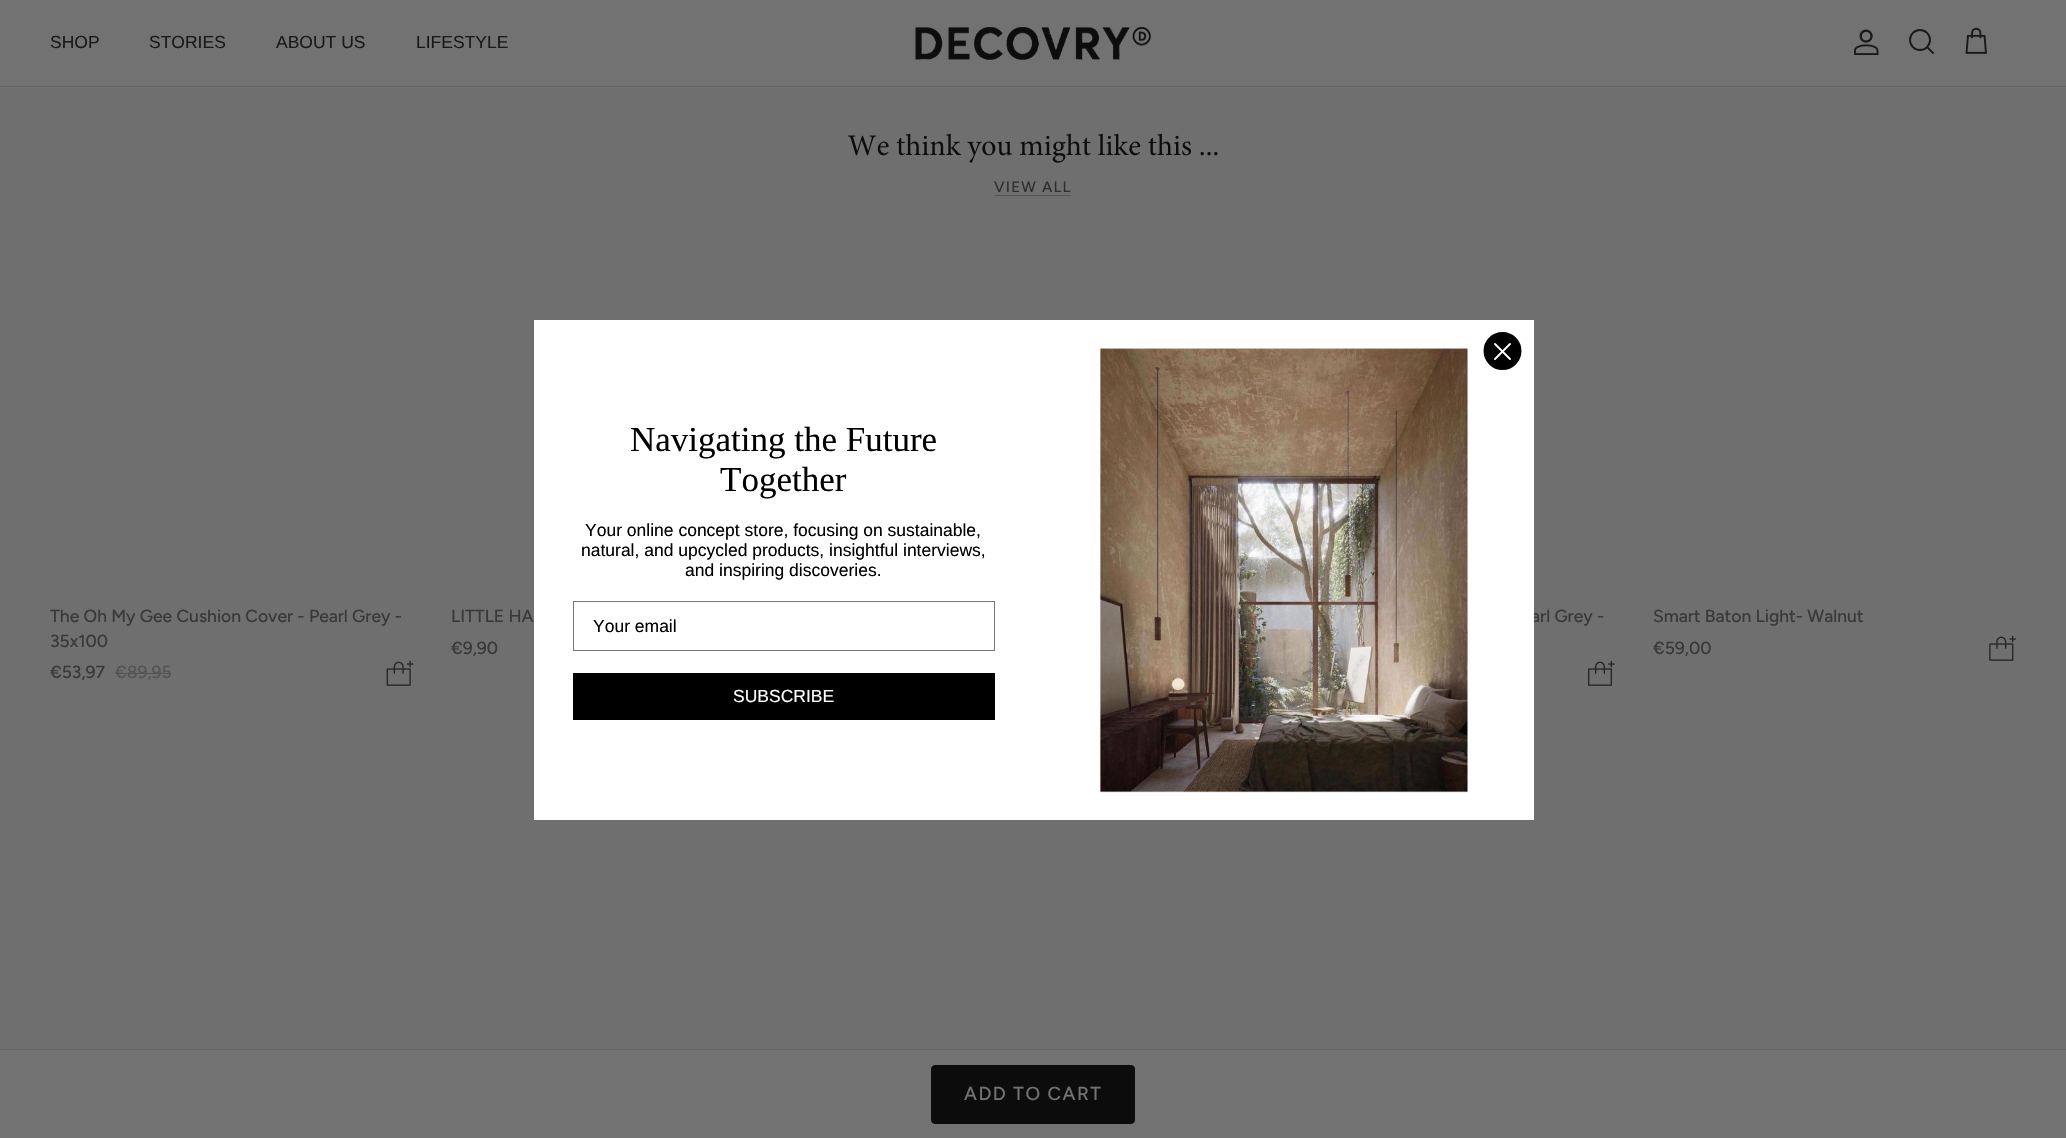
void draw(SkCanvas* canvas) {
	SkPaint paint;
	paint.setAntiAlias(true);
	auto spacedText = [&](const char* s, float x, float y, const SkFont& font, const SkPaint& ink, float letter, float word) {
		std::vector<SkGlyphID> glyphs(font.countText(s, strlen(s), SkTextEncoding::kUTF8));
		std::vector<float> xs(glyphs.size());
		font.textToGlyphs(s, strlen(s), SkTextEncoding::kUTF8, glyphs);
		font.getXPos(glyphs, xs, x);
		float extra = 0;
		for (size_t i = 0; i < glyphs.size(); i++) {
			xs[i] += extra;
			extra += letter + word * (glyphs[i] == font.unicharToGlyph(' '));
		}
		canvas->drawTextBlob(SkTextBlob::MakeFromPosHGlyphs(glyphs, xs, y, font), 0, 0, ink);
	};
	auto svgPath = [&](const char* data, bool evenOdd = false) {
		SkPath result = *SkParsePath::FromSVGString(data);
		if (evenOdd) result.setFillType(SkPathFillType::kEvenOdd);
		return result;
	};
	canvas->clear(0xff6f6f6f);
	paint.setColor(0xff727272);
	canvas->drawRect(SkRect::MakeXYWH(0, 0, 2066, 88), paint);
	paint.setColor(0xff666666);
	canvas->drawRect(SkRect::MakeXYWH(0, 86, 2066, 1), paint);
	SkFont f1(fontMgr->matchFamilyStyle("Liberation Sans", SkFontStyle::Normal()), 17.5);
	f1.setSubpixel(true);
	paint.setColor(0xff19191a);
	canvas->drawString("SHOP", 50, 48, f1, paint);
	canvas->drawString("STORIES", 149, 48, f1, paint);
	canvas->drawString("ABOUT US", 276, 48, f1, paint);
	canvas->drawString("LIFESTYLE", 416, 48, f1, paint);
	canvas->drawImageRect(SkImages::DeferredFromEncodedData(SkData::MakeFromFileName("img1.png")), SkRect::MakeXYWH(915, 27, 236, 33), SkSamplingOptions());
	canvas->drawImageRect(SkImages::DeferredFromEncodedData(SkData::MakeFromFileName("img2.png")), SkRect::MakeXYWH(1854, 29, 25, 26), SkSamplingOptions());
	paint.setStroke(true);
	paint.setStrokeWidth(1.9);
	canvas->drawCircle(1920, 40, 10, paint);
	paint.setStrokeCap(SkPaint::kSquare_Cap);
	canvas->drawPath(svgPath("M1927.5 47.5L1933 53"), paint);
	canvas->drawImageRect(SkImages::DeferredFromEncodedData(SkData::MakeFromFileName("img3.png")), SkRect::MakeXYWH(1965, 27, 22, 27), SkSamplingOptions());
	canvas->drawImageRect(SkImages::DeferredFromEncodedData(SkData::MakeFromFileName("img4.png")), SkRect::MakeXYWH(848, 133, 370, 30), SkSamplingOptions());
	SkFont f2(fontMgr->matchFamilyStyle("Figtree", SkFontStyle(500, SkFontStyle::kNormal_Width, SkFontStyle::kUpright_Slant)), 15);
	f2.setSubpixel(true);
	paint.setStroke(false);
	paint.setColor(0xff2e2f2f);
	spacedText("VIEW ALL", 994, 192, f2, paint, 1.25, 0);
	paint.setColor(0xff555556);
	canvas->drawRect(SkRect::MakeXYWH(995, 195, 76, 1), paint);
	SkFont f3(fontMgr->matchFamilyStyle("Figtree", SkFontStyle(500, SkFontStyle::kNormal_Width, SkFontStyle::kUpright_Slant)), 17.5);
	f3.setSubpixel(true);
	paint.setColor(0xff38393b);
	canvas->drawString("The Oh My Gee Cushion Cover - Pearl Grey -", 50, 622, f3, paint);
	canvas->drawString("35x100", 50, 647, f3, paint);
	canvas->drawString("€53,97", 50, 678, f3, paint);
	paint.setColor(0xff535455);
	canvas->drawString("€89,95", 115, 678, f3, paint);
	canvas->drawRect(SkRect::MakeXYWH(115, 673, 56, 1), paint);
	canvas->drawImageRect(SkImages::DeferredFromEncodedData(SkData::MakeFromFileName("img5.png")), SkRect::MakeXYWH(386, 660, 28, 26), SkSamplingOptions());
	paint.setColor(0xff38393b);
	canvas->drawString("LITTLE HA", 451, 622, f3, paint);
	canvas->drawString("€9,90", 451, 654, f3, paint);
	canvas->drawString("arl Grey -", 1531, 622, f3, paint);
	canvas->drawImageRect(SkImages::DeferredFromEncodedData(SkData::MakeFromFileName("img6.png")), SkRect::MakeXYWH(1588, 660, 27, 26), SkSamplingOptions());
	canvas->drawString("Smart Baton Light- Walnut", 1653, 622, f3, paint);
	canvas->drawString("€59,00", 1653, 654, f3, paint);
	canvas->drawImageRect(SkImages::DeferredFromEncodedData(SkData::MakeFromFileName("img7.png")), SkRect::MakeXYWH(1989, 635, 27, 26), SkSamplingOptions());
	paint.setColor(0xff727272);
	canvas->drawRect(SkRect::MakeXYWH(0, 1050, 2066, 88), paint);
	paint.setColor(0xff666666);
	canvas->drawRect(SkRect::MakeXYWH(0, 1049, 2066, 1), paint);
	paint.setColor(0xff0c0c0c);
	canvas->drawRoundRect(SkRect::MakeXYWH(931.5, 1065.5, 203, 58), 3.5, 3.5, paint);
	paint.setStroke(true);
	paint.setStrokeWidth(1);
	paint.setStrokeCap(SkPaint::kButt_Cap);
	canvas->drawRoundRect(SkRect::MakeXYWH(931.5, 1065.5, 203, 58), 3.5, 3.5, paint);
	SkFont f4(fontMgr->matchFamilyStyle("Figtree", SkFontStyle(500, SkFontStyle::kNormal_Width, SkFontStyle::kUpright_Slant)), 18.75);
	f4.setSubpixel(true);
	paint.setStroke(false);
	paint.setColor(0xff727272);
	spacedText("ADD TO CART", 964, 1100, f4, paint, 1.5, 0);
	paint.setColor(0xffffffff);
	canvas->drawRect(SkRect::MakeXYWH(534, 320, 1000, 500), paint);
	paint.setColor(0xff000000);
	canvas->drawCircle(1502.5, 351, 18, paint);
	paint.setStroke(true);
	paint.setStrokeWidth(1.9);
	canvas->drawCircle(1502.5, 351, 18, paint);
	paint.setStrokeCap(SkPaint::kRound_Cap);
	paint.setStrokeJoin(SkPaint::kRound_Join);
	paint.setColor(0xffffffff);
	canvas->drawPath(svgPath("M1495 344L1510 359M1495 359L1510 344Z"), paint);
	SkFont f5(fontMgr->matchFamilyStyle("Liberation Serif", SkFontStyle::Normal()), 35);
	f5.setSubpixel(true);
	paint.setStroke(false);
	paint.setColor(0xff000000);
	canvas->drawString("Navigating the Future", 630, 451, f5, paint);
	canvas->drawString("Together", 720, 491, f5, paint);
	canvas->drawString("Your online concept store, focusing on sustainable,", 585, 536, f1, paint);
	canvas->drawString("natural, and upcycled products, insightful interviews,", 581, 556, f1, paint);
	canvas->drawString("and inspiring discoveries.", 685, 576, f1, paint);
	paint.setStroke(true);
	paint.setStrokeWidth(1);
	paint.setStrokeCap(SkPaint::kButt_Cap);
	paint.setStrokeJoin(SkPaint::kMiter_Join);
	paint.setColor(0xff767676);
	canvas->drawRect(SkRect::MakeXYWH(573.5, 601.5, 421, 49), paint);
	paint.setStroke(false);
	paint.setColor(0xff000000);
	canvas->drawString("Your email", 593, 632, f1, paint);
	canvas->drawRect(SkRect::MakeXYWH(573, 673, 422, 47), paint);
	paint.setColor(0xffffffff);
	canvas->drawString("SUBSCRIBE", 733, 702, f1, paint);
	canvas->drawImageRect(SkImages::DeferredFromEncodedData(SkData::MakeFromFileName("img8.png")), SkRect::MakeXYWH(1099, 348, 371, 445), SkSamplingOptions());
}
